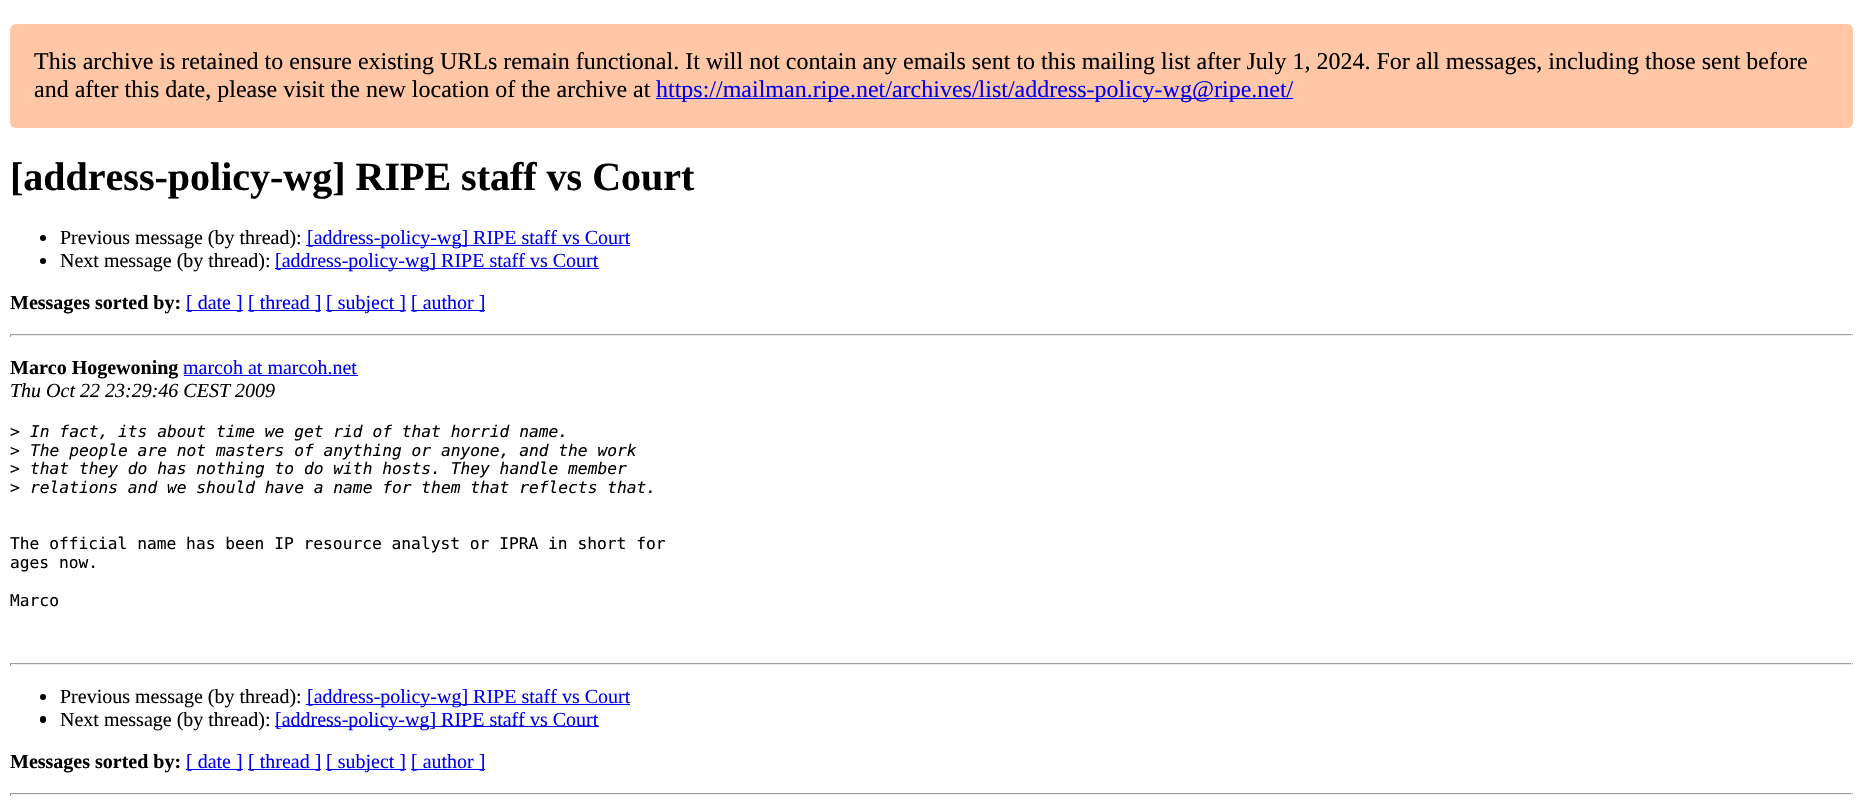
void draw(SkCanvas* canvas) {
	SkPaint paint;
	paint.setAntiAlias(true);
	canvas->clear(0xffffffff);
	paint.setColor(0xffffc7a6);
	canvas->drawRoundRect(SkRect::MakeXYWH(10, 24, 1843, 104), 6, 6, paint);
	SkFont f1(fontMgr->matchFamilyStyle("Liberation Serif", SkFontStyle::Normal()), 24);
	f1.setSubpixel(true);
	paint.setColor(0xff000000);
	canvas->drawString("This archive is retained to ensure existing URLs remain functional. It will not contain any emails sent to this mailing list after July 1, 2024. For all messages, including those sent before", 34, 69, f1, paint);
	canvas->drawString("and after this date, please visit the new location of the archive at", 34, 97, f1, paint);
	paint.setColor(0xff0000ee);
	canvas->drawRect(SkRect::MakeXYWH(656, 98, 637, 1), paint);
	canvas->drawString("https://mailman.ripe.net/archives/list/address-policy-wg@ripe.net/", 656, 97, f1, paint);
	SkFont f2(fontMgr->matchFamilyStyle("Liberation Serif", SkFontStyle::Bold()), 40);
	f2.setSubpixel(true);
	paint.setColor(0xff000000);
	canvas->drawString("[address-policy-wg] RIPE staff vs Court", 10, 190, f2, paint);
	canvas->drawCircle(43, 238, 3, paint);
	SkFont f3(fontMgr->matchFamilyStyle("Liberation Serif", SkFontStyle::Normal()), 20);
	f3.setSubpixel(true);
	canvas->drawString("Previous message (by thread):", 60, 244, f3, paint);
	paint.setColor(0xff0000ee);
	canvas->drawRect(SkRect::MakeXYWH(306, 245, 324, 1), paint);
	canvas->drawString("[address-policy-wg] RIPE staff vs Court", 307, 244, f3, paint);
	paint.setColor(0xff000000);
	canvas->drawCircle(43, 261, 3, paint);
	canvas->drawString("Next message (by thread):", 60, 267, f3, paint);
	paint.setColor(0xff0000ee);
	canvas->drawRect(SkRect::MakeXYWH(275, 268, 324, 1), paint);
	canvas->drawString("[address-policy-wg] RIPE staff vs Court", 275, 267, f3, paint);
	SkFont f4(fontMgr->matchFamilyStyle("Liberation Serif", SkFontStyle::Bold()), 20);
	f4.setSubpixel(true);
	paint.setColor(0xff000000);
	canvas->drawString("Messages sorted by:", 10, 309, f4, paint);
	paint.setColor(0xff0000ee);
	canvas->drawRect(SkRect::MakeXYWH(186, 310, 57, 1), paint);
	canvas->drawString("[ date ]", 186, 309, f3, paint);
	canvas->drawRect(SkRect::MakeXYWH(248, 310, 73, 1), paint);
	canvas->drawString("[ thread ]", 248, 309, f3, paint);
	canvas->drawRect(SkRect::MakeXYWH(326, 310, 80, 1), paint);
	canvas->drawString("[ subject ]", 326, 309, f3, paint);
	canvas->drawRect(SkRect::MakeXYWH(411, 310, 74, 1), paint);
	canvas->drawString("[ author ]", 411, 309, f3, paint);
	paint.setColor(0xff9f9f9f);
	canvas->drawRect(SkRect::MakeXYWH(10, 334, 1843, 1), paint);
	paint.setColor(0xffeeeeee);
	canvas->drawRect(SkRect::MakeXYWH(1851, 334, 1, 3), paint);
	canvas->drawRect(SkRect::MakeXYWH(10, 335, 1843, 1), paint);
	paint.setColor(0xff9f9f9f);
	canvas->drawRect(SkRect::MakeXYWH(10, 334, 1, 3), paint);
	paint.setColor(0xff000000);
	canvas->drawString("Marco Hogewoning", 10, 374, f4, paint);
	paint.setColor(0xff0000ee);
	canvas->drawString("marcoh at marcoh.net", 183, 374, f3, paint);
	canvas->drawRect(SkRect::MakeXYWH(184, 375, 174, 1), paint);
	SkFont f5(fontMgr->matchFamilyStyle("Liberation Serif", SkFontStyle::Italic()), 20);
	f5.setSubpixel(true);
	paint.setColor(0xff000000);
	canvas->drawString("Thu Oct 22 23:29:46 CEST 2009", 10, 397, f5, paint);
	SkFont f6(fontMgr->matchFamilyStyle("DejaVu Sans Mono", SkFontStyle::Normal()), 16.25);
	f6.setSubpixel(true);
	canvas->drawString(">", 10, 437, f6, paint);
	SkFont f7(fontMgr->matchFamilyStyle("DejaVu Sans Mono", SkFontStyle::Italic()), 16.25);
	f7.setSubpixel(true);
	canvas->drawString("In fact, its about time we get rid of that horrid name.", 30, 437, f7, paint);
	canvas->drawString(">", 10, 456, f6, paint);
	canvas->drawString("The people are not masters of anything or anyone, and the work", 30, 456, f7, paint);
	canvas->drawString(">", 10, 474, f6, paint);
	canvas->drawString("that they do has nothing to do with hosts. They handle member", 30, 474, f7, paint);
	canvas->drawString(">", 10, 493, f6, paint);
	canvas->drawString("relations and we should have a name for them that reflects that.", 30, 493, f7, paint);
	canvas->drawString("The official name has been IP resource analyst or IPRA in short for", 10, 549, f6, paint);
	canvas->drawString("ages now.", 10, 568, f6, paint);
	canvas->drawString("Marco", 10, 606, f6, paint);
	paint.setColor(0xff9f9f9f);
	canvas->drawRect(SkRect::MakeXYWH(10, 663, 1843, 1), paint);
	paint.setColor(0xffeeeeee);
	canvas->drawRect(SkRect::MakeXYWH(1851, 663, 1, 3), paint);
	canvas->drawRect(SkRect::MakeXYWH(10, 664, 1843, 1), paint);
	paint.setColor(0xff9f9f9f);
	canvas->drawRect(SkRect::MakeXYWH(10, 663, 1, 3), paint);
	paint.setColor(0xff000000);
	canvas->drawCircle(43, 697, 3, paint);
	canvas->drawString("Previous message (by thread):", 60, 703, f3, paint);
	paint.setColor(0xff0000ee);
	canvas->drawRect(SkRect::MakeXYWH(306, 704, 324, 1), paint);
	canvas->drawString("[address-policy-wg] RIPE staff vs Court", 307, 703, f3, paint);
	paint.setColor(0xff000000);
	canvas->drawRoundRect(SkRect::MakeXYWH(40, 716, 6, 7), 3, 3, paint);
	canvas->drawString("Next message (by thread):", 60, 726, f3, paint);
	paint.setColor(0xff0000ee);
	canvas->drawRect(SkRect::MakeXYWH(275, 726, 324, 1), paint);
	canvas->drawString("[address-policy-wg] RIPE staff vs Court", 275, 726, f3, paint);
	paint.setColor(0xff000000);
	canvas->drawString("Messages sorted by:", 10, 768, f4, paint);
	paint.setColor(0xff0000ee);
	canvas->drawRect(SkRect::MakeXYWH(186, 769, 57, 1), paint);
	canvas->drawString("[ date ]", 186, 768, f3, paint);
	canvas->drawRect(SkRect::MakeXYWH(248, 769, 73, 1), paint);
	canvas->drawString("[ thread ]", 248, 768, f3, paint);
	canvas->drawRect(SkRect::MakeXYWH(326, 769, 80, 1), paint);
	canvas->drawString("[ subject ]", 326, 768, f3, paint);
	canvas->drawRect(SkRect::MakeXYWH(411, 769, 74, 1), paint);
	canvas->drawString("[ author ]", 411, 768, f3, paint);
	paint.setColor(0xff9f9f9f);
	canvas->drawRect(SkRect::MakeXYWH(10, 793, 1843, 1), paint);
	paint.setColor(0xffeeeeee);
	canvas->drawRect(SkRect::MakeXYWH(1851, 793, 1, 3), paint);
	canvas->drawRect(SkRect::MakeXYWH(10, 794, 1843, 1), paint);
	paint.setColor(0xff9f9f9f);
	canvas->drawRect(SkRect::MakeXYWH(10, 793, 1, 3), paint);
}
